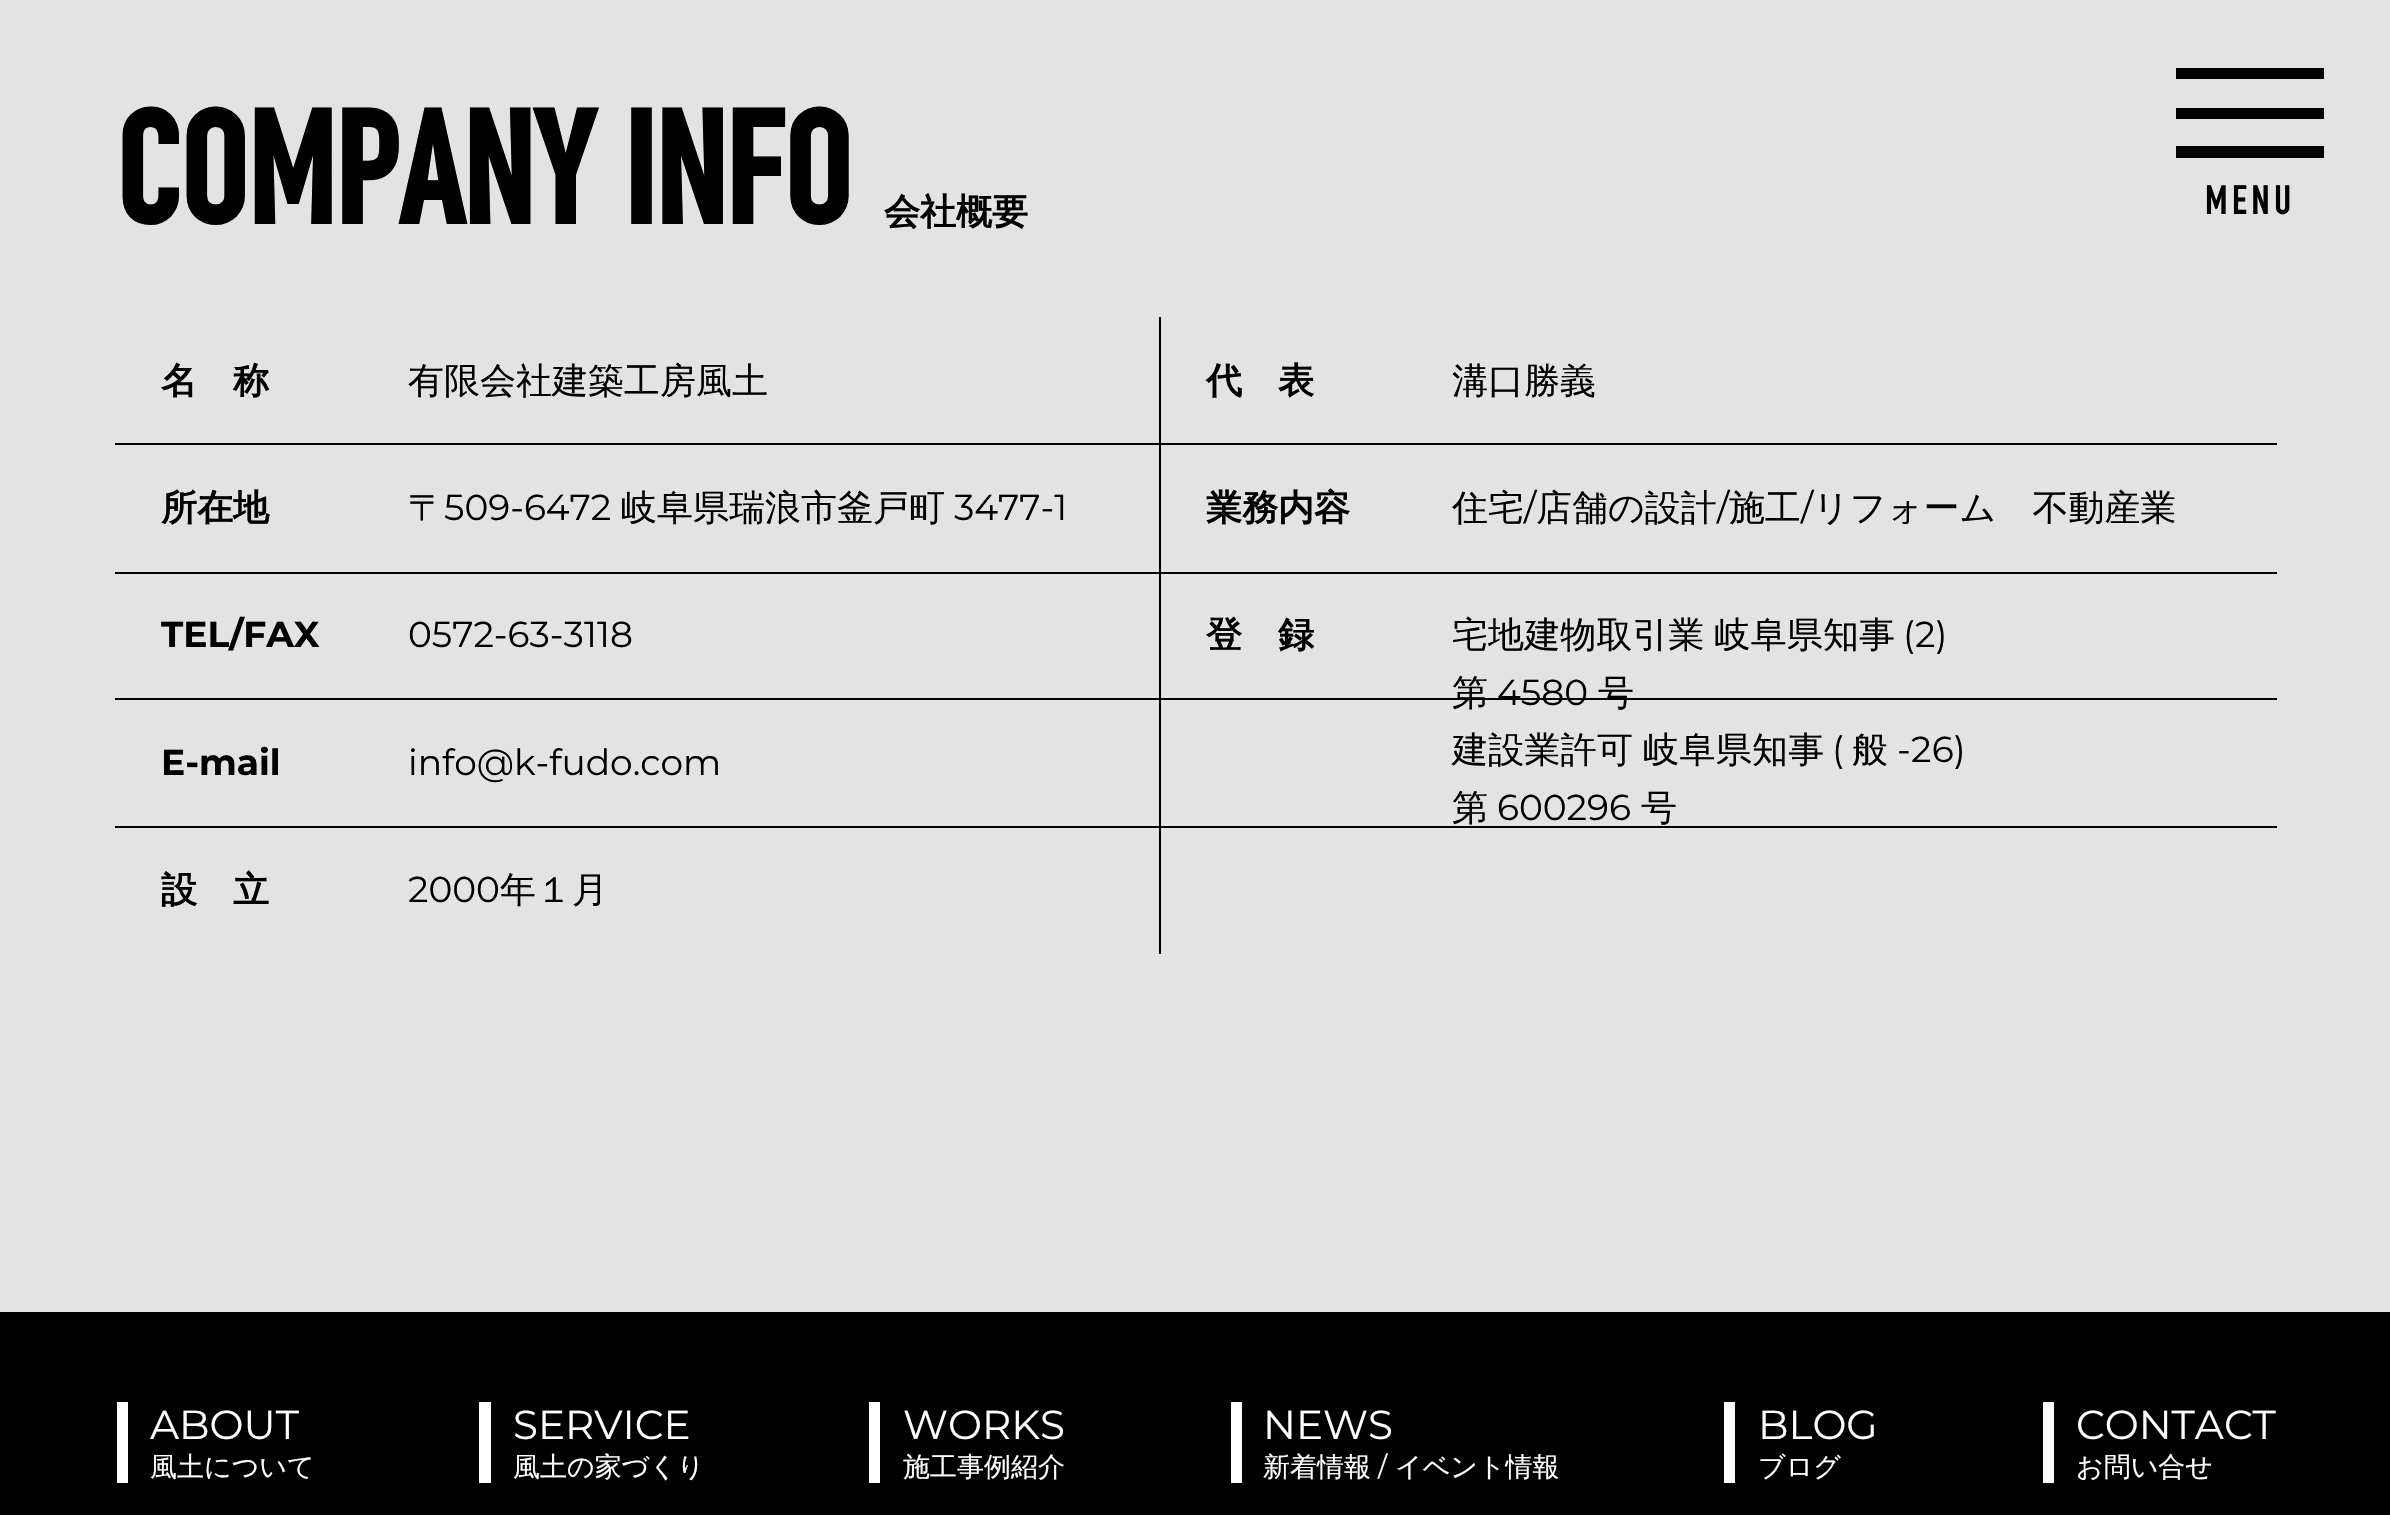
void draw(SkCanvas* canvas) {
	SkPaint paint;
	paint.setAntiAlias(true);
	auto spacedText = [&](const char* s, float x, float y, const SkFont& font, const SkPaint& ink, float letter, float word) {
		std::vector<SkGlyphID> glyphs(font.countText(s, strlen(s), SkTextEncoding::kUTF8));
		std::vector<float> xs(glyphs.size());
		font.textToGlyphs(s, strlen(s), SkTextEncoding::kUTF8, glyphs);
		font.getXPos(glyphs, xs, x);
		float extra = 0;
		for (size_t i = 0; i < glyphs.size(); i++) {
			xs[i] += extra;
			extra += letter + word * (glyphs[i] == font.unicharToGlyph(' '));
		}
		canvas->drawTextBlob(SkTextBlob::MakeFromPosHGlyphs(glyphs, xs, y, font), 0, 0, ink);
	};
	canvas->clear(0xffe3e3e3);
	SkFont f1(fontMgr->matchFamilyStyle("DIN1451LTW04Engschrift", SkFontStyle::Bold()), 157.5);
	f1.setSubpixel(true);
	paint.setColor(0xff000000);
	canvas->drawString("COMPANY INFO", 116, 224, f1, paint);
	SkFont f2(fontMgr->matchFamilyStyle("WenQuanYi Zen Hei", SkFontStyle::Bold()), 36);
	f2.setSubpixel(true);
	canvas->drawString("会社概要", 884, 224, f2, paint);
	canvas->drawString("名　称", 161, 393, f2, paint);
	SkFont f3(fontMgr->matchFamilyStyle("WenQuanYi Zen Hei", SkFontStyle(500, SkFontStyle::kNormal_Width, SkFontStyle::kUpright_Slant)), 36);
	f3.setSubpixel(true);
	canvas->drawString("有限会社建築工房風土", 408, 393, f3, paint);
	canvas->drawString("代　表", 1206, 393, f2, paint);
	canvas->drawString("溝口勝義", 1452, 393, f3, paint);
	canvas->drawRect(SkRect::MakeXYWH(115, 443, 2162, 2), paint);
	canvas->drawString("所在地", 161, 520, f2, paint);
	canvas->drawString("〒", 408, 520, f3, paint);
	SkFont f4(fontMgr->matchFamilyStyle("Montserrat", SkFontStyle::Normal()), 36);
	f4.setSubpixel(true);
	canvas->drawString("509-6472", 444, 520, f4, paint);
	canvas->drawString("岐阜県瑞浪市釜戸町", 621, 520, f3, paint);
	canvas->drawString("3477-1", 954, 520, f4, paint);
	canvas->drawString("業務内容", 1206, 520, f2, paint);
	canvas->drawString("住宅", 1452, 520, f3, paint);
	canvas->drawString("/", 1524, 520, f4, paint);
	canvas->drawString("店舗の設計", 1536, 520, f3, paint);
	canvas->drawString("/", 1717, 520, f4, paint);
	canvas->drawString("施工", 1729, 520, f3, paint);
	canvas->drawString("/", 1801, 520, f4, paint);
	canvas->drawString("リフォーム　不動産業", 1813, 520, f3, paint);
	canvas->drawRect(SkRect::MakeXYWH(115, 572, 2162, 2), paint);
	SkFont f5(fontMgr->matchFamilyStyle("Montserrat", SkFontStyle::Bold()), 36);
	f5.setSubpixel(true);
	canvas->drawString("TEL/FAX", 161, 647, f5, paint);
	canvas->drawString("0572-63-3118", 408, 647, f4, paint);
	canvas->drawRect(SkRect::MakeXYWH(115, 698, 2162, 2), paint);
	canvas->drawRect(SkRect::MakeXYWH(115, 826, 2162, 2), paint);
	canvas->drawRect(SkRect::MakeXYWH(1159, 317, 2, 637), paint);
	canvas->drawString("登　録", 1206, 647, f2, paint);
	spacedText("宅地建物取引業 岐阜県知事", 1452, 647, f3, paint, 0.1, -1);
	spacedText("(2)", 1903, 647, f4, paint, 0.1, 0);
	canvas->drawString("第", 1452, 705, f3, paint);
	canvas->drawString("4580", 1497, 705, f4, paint);
	canvas->drawString("号", 1598, 705, f3, paint);
	spacedText("建設業許可 岐阜県知事", 1452, 762, f3, paint, 0.25, -1);
	spacedText("(", 1832, 762, f4, paint, 0.25, 0);
	spacedText("般", 1852, 762, f3, paint, 0.25, 0);
	spacedText("-26)", 1897, 762, f4, paint, 0.25, 0);
	canvas->drawString("第", 1452, 820, f3, paint);
	canvas->drawString("600296", 1497, 820, f4, paint);
	canvas->drawString("号", 1641, 820, f3, paint);
	canvas->drawString("E-mail", 161, 775, f5, paint);
	canvas->drawString("info@k-fudo.com", 408, 775, f4, paint);
	canvas->drawString("設　立", 161, 902, f2, paint);
	canvas->drawString("2000", 408, 902, f4, paint);
	canvas->drawString("年１月", 500, 902, f3, paint);
	canvas->drawRect(SkRect::MakeXYWH(2176, 68, 148, 11), paint);
	canvas->drawRect(SkRect::MakeXYWH(2176, 108, 148, 11), paint);
	canvas->drawRect(SkRect::MakeXYWH(2176, 146, 148, 12), paint);
	SkFont f6(fontMgr->matchFamilyStyle("DIN1451LTW04Engschrift", SkFontStyle::Normal()), 40.5);
	f6.setSubpixel(true);
	spacedText("MENU", 2205, 214, f6, paint, 4.5, 0);
	canvas->drawRect(SkRect::MakeXYWH(0, 1312, 2390, 203), paint);
	paint.setColor(0xffffffff);
	canvas->drawRect(SkRect::MakeXYWH(117, 1402, 11, 81), paint);
	SkFont f7(fontMgr->matchFamilyStyle("Montserrat", SkFontStyle::Normal()), 40.5);
	f7.setSubpixel(true);
	canvas->drawString("ABOUT", 150, 1439, f7, paint);
	SkFont f8(fontMgr->matchFamilyStyle("WenQuanYi Zen Hei", SkFontStyle(500, SkFontStyle::kNormal_Width, SkFontStyle::kUpright_Slant)), 27);
	f8.setSubpixel(true);
	canvas->drawString("風土について", 150, 1476, f8, paint);
	canvas->drawRect(SkRect::MakeXYWH(479, 1402, 12, 81), paint);
	canvas->drawString("SERVICE", 513, 1439, f7, paint);
	canvas->drawString("風土の家づくり", 513, 1476, f8, paint);
	canvas->drawRect(SkRect::MakeXYWH(869, 1402, 11, 81), paint);
	canvas->drawString("WORKS", 903, 1439, f7, paint);
	canvas->drawString("施工事例紹介", 903, 1476, f8, paint);
	canvas->drawRect(SkRect::MakeXYWH(1231, 1402, 11, 81), paint);
	canvas->drawString("NEWS", 1263, 1439, f7, paint);
	canvas->drawString("新着情報", 1263, 1476, f8, paint);
	SkFont f9(fontMgr->matchFamilyStyle("Montserrat", SkFontStyle::Normal()), 27);
	f9.setSubpixel(true);
	canvas->drawString("/", 1378, 1476, f9, paint);
	canvas->drawString("イベント情報", 1395, 1476, f8, paint);
	canvas->drawRect(SkRect::MakeXYWH(1724, 1402, 11, 81), paint);
	canvas->drawString("BLOG", 1758, 1439, f7, paint);
	canvas->drawString("ブログ", 1758, 1476, f8, paint);
	canvas->drawRect(SkRect::MakeXYWH(2043, 1402, 11, 81), paint);
	canvas->drawString("CONTACT", 2076, 1439, f7, paint);
	canvas->drawString("お問い合せ", 2076, 1476, f8, paint);
}
